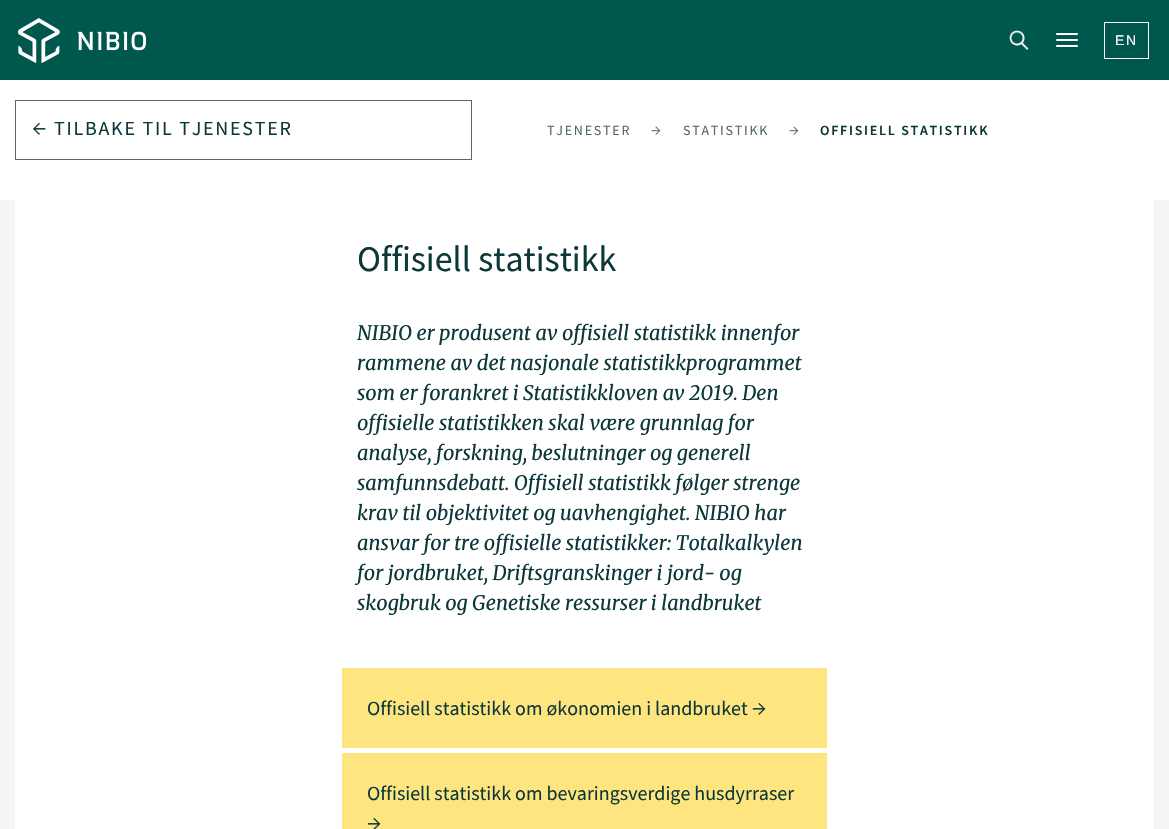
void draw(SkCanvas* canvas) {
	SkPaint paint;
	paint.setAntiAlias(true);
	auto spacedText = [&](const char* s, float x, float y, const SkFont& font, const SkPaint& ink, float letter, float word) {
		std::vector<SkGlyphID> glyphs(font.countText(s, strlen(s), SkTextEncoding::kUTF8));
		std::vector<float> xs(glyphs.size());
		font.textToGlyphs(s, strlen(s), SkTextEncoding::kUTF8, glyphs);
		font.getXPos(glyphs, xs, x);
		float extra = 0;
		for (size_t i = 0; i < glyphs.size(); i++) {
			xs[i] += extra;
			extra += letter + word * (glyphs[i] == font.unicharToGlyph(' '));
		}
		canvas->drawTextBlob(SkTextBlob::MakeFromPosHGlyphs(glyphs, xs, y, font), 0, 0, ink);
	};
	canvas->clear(0xfff4f5f5);
	paint.setColor(0xff00574d);
	canvas->drawRect(SkRect::MakeXYWH(0, 0, 1169, 80), paint);
	canvas->drawImageRect(SkImages::DeferredFromEncodedData(SkData::MakeFromFileName("img1.png")), SkRect::MakeXYWH(18, 18, 128, 45), SkSamplingOptions());
	canvas->drawImageRect(SkImages::DeferredFromEncodedData(SkData::MakeFromFileName("img2.png")), SkRect::MakeXYWH(1009, 30, 20, 20), SkSamplingOptions());
	paint.setColor(0xffffffff);
	canvas->drawRoundRect(SkRect::MakeXYWH(1056, 33, 22, 2), 1, 1, paint);
	canvas->drawRoundRect(SkRect::MakeXYWH(1056, 39, 22, 2), 1, 1, paint);
	canvas->drawRoundRect(SkRect::MakeXYWH(1056, 45, 22, 2), 1, 1, paint);
	paint.setStroke(true);
	paint.setStrokeWidth(1);
	canvas->drawRect(SkRect::MakeXYWH(1104.5, 22.5, 44, 36), paint);
	SkFont f1(fontMgr->matchFamilyStyle("Liberation Sans", SkFontStyle::Normal()), 14);
	f1.setSubpixel(true);
	paint.setStroke(false);
	spacedText("EN", 1115, 45, f1, paint, 1.75, 0);
	canvas->drawRect(SkRect::MakeXYWH(0, 80, 1169, 120), paint);
	paint.setStroke(true);
	paint.setColor(0xff556872);
	canvas->drawRect(SkRect::MakeXYWH(15.5, 100.5, 456, 59), paint);
	canvas->drawImageRect(SkImages::DeferredFromEncodedData(SkData::MakeFromFileName("img3.png")), SkRect::MakeXYWH(32, 122, 14, 13), SkSamplingOptions());
	SkFont f2(fontMgr->matchFamilyStyle("Source Sans Pro", SkFontStyle::Normal()), 20);
	f2.setSubpixel(true);
	paint.setStroke(false);
	paint.setColor(0xff0d3839);
	spacedText("TILBAKE TIL TJENESTER", 54, 135, f2, paint, 1.75, 0);
	SkFont f3(fontMgr->matchFamilyStyle("Source Sans Pro", SkFontStyle::Normal()), 14);
	f3.setSubpixel(true);
	paint.setColor(0xff556872);
	spacedText("TJENESTER", 547, 135, f3, paint, 1.75, 0);
	canvas->drawImageRect(SkImages::DeferredFromEncodedData(SkData::MakeFromFileName("img4.png")), SkRect::MakeXYWH(651, 126, 10, 9), SkSamplingOptions());
	spacedText("STATISTIKK", 683, 135, f3, paint, 1.75, 0);
	canvas->drawImageRect(SkImages::DeferredFromEncodedData(SkData::MakeFromFileName("img4.png")), SkRect::MakeXYWH(789, 126, 10, 9), SkSamplingOptions());
	SkFont f4(fontMgr->matchFamilyStyle("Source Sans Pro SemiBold", SkFontStyle(600, SkFontStyle::kNormal_Width, SkFontStyle::kUpright_Slant)), 14);
	f4.setSubpixel(true);
	paint.setColor(0xff0d3839);
	spacedText("OFFISIELL STATISTIKK", 820, 135, f4, paint, 1.75, 0);
	paint.setColor(0xffffffff);
	canvas->drawRect(SkRect::MakeXYWH(15, 200, 1139, 629), paint);
	SkFont f5(fontMgr->matchFamilyStyle("Source Sans Pro", SkFontStyle::Normal()), 36);
	f5.setSubpixel(true);
	paint.setColor(0xff0d3839);
	canvas->drawString("Offisiell statistikk", 357, 271, f5, paint);
	SkFont f6(fontMgr->matchFamilyStyle("Merriweather", SkFontStyle(300, SkFontStyle::kNormal_Width, SkFontStyle::kItalic_Slant)), 20);
	f6.setSubpixel(true);
	canvas->drawString("NIBIO er produsent av offisiell statistikk innenfor", 357, 340, f6, paint);
	canvas->drawString("rammene av det nasjonale statistikkprogrammet", 357, 370, f6, paint);
	canvas->drawString("som er forankret i Statistikkloven av 2019. Den", 357, 400, f6, paint);
	canvas->drawString("offisielle statistikken skal være grunnlag for", 357, 430, f6, paint);
	canvas->drawString("analyse, forskning, beslutninger og generell", 357, 460, f6, paint);
	canvas->drawString("samfunnsdebatt. Offisiell statistikk følger strenge", 357, 490, f6, paint);
	canvas->drawString("krav til objektivitet og uavhengighet. NIBIO har", 357, 520, f6, paint);
	canvas->drawString("ansvar for tre offisielle statistikker: Totalkalkylen", 357, 550, f6, paint);
	canvas->drawString("for jordbruket, Driftsgranskinger i jord- og", 357, 580, f6, paint);
	canvas->drawString("skogbruk og Genetiske ressurser i landbruket", 357, 610, f6, paint);
	paint.setColor(0xffffe57f);
	canvas->drawRect(SkRect::MakeXYWH(342, 668, 485, 80), paint);
	paint.setColor(0xff0d3839);
	canvas->drawString("Offisiell statistikk om økonomien i landbruket", 367, 715, f2, paint);
	canvas->drawImageRect(SkImages::DeferredFromEncodedData(SkData::MakeFromFileName("img5.png")), SkRect::MakeXYWH(752, 702, 14, 13), SkSamplingOptions());
	paint.setColor(0xffffe57f);
	canvas->drawRect(SkRect::MakeXYWH(342, 753, 485, 76), paint);
	paint.setColor(0xff0d3839);
	canvas->drawString("Offisiell statistikk om bevaringsverdige husdyrraser", 367, 800, f2, paint);
	canvas->drawImageRect(SkImages::DeferredFromEncodedData(SkData::MakeFromFileName("img6.png")), SkRect::MakeXYWH(367, 817, 14, 12), SkSamplingOptions());
}
